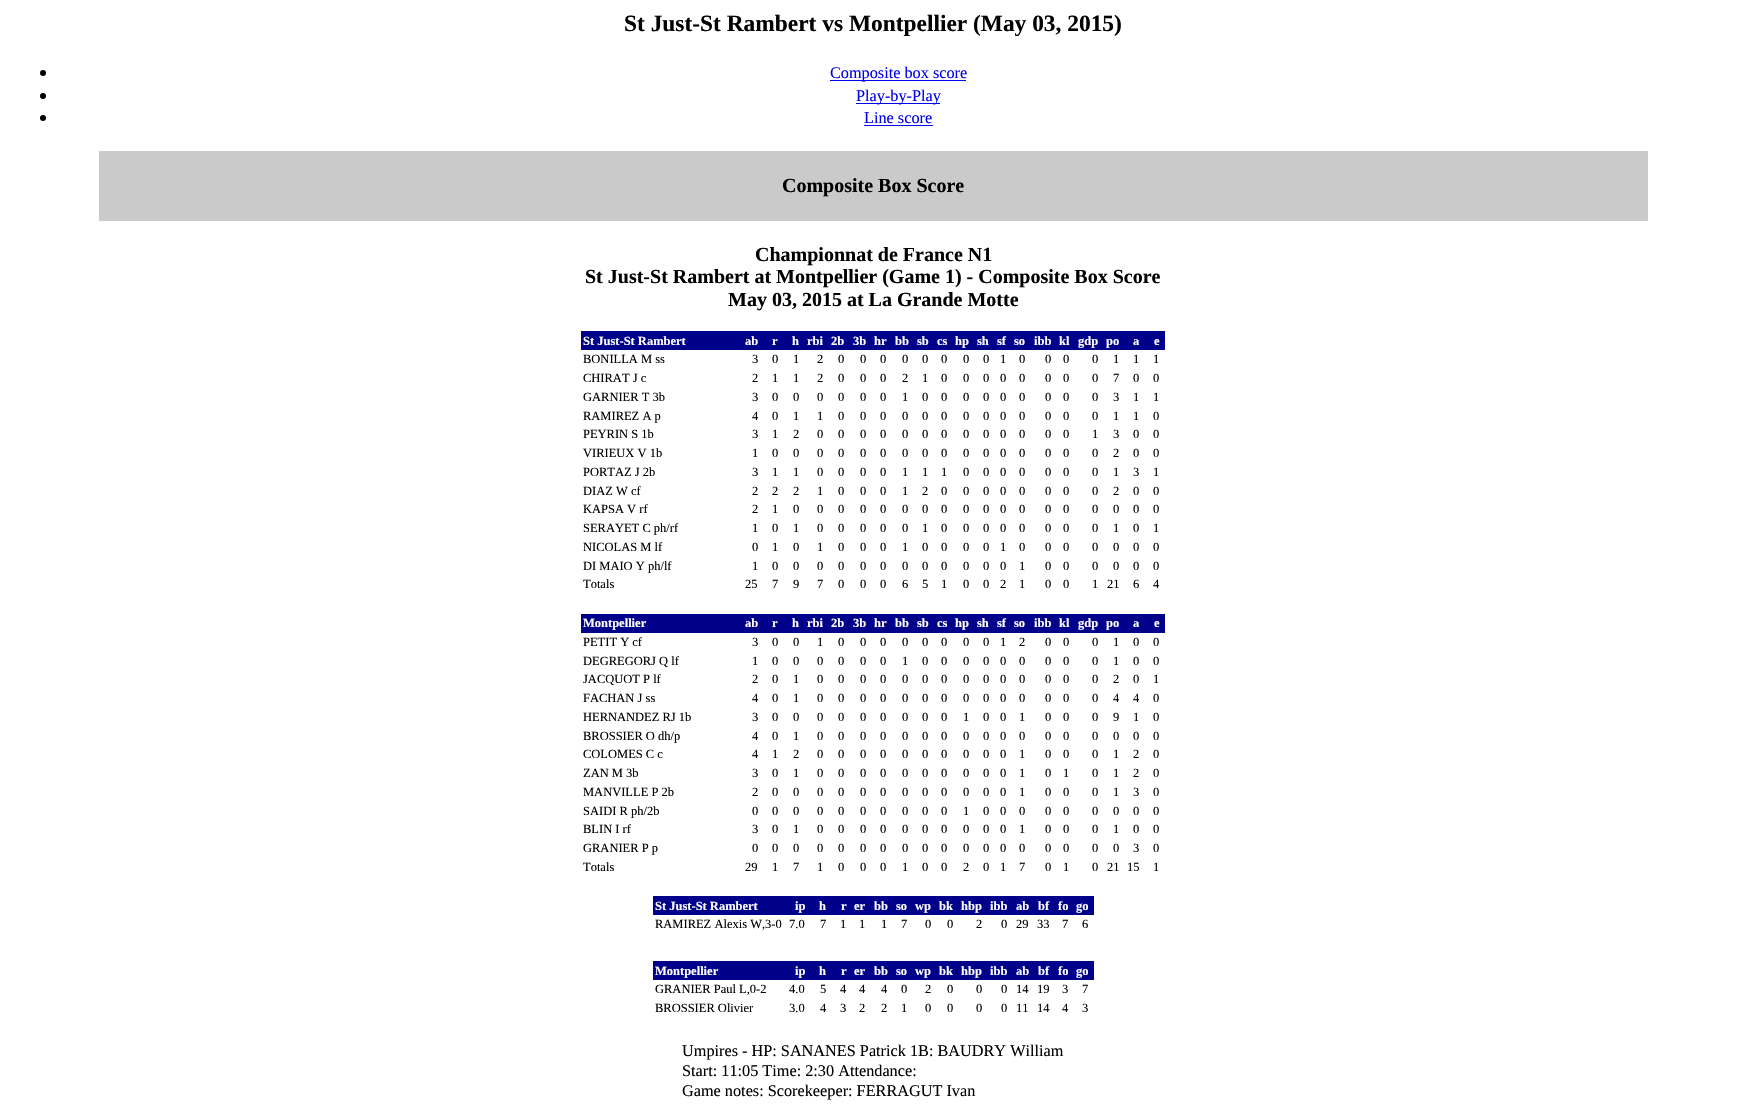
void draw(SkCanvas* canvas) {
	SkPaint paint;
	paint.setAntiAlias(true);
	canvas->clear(0xffffffff);
	SkFont f1(fontMgr->matchFamilyStyle("Liberation Serif", SkFontStyle::Bold()), 23.4);
	f1.setSubpixel(true);
	paint.setColor(0xff000000);
	canvas->drawString("St Just-St Rambert vs Montpellier (May 03, 2015)", 624, 31, f1, paint);
	canvas->drawCircle(43, 73, 3, paint);
	paint.setColor(0xff0000ee);
	canvas->drawRect(SkRect::MakeXYWH(830, 80, 136, 1), paint);
	SkFont f2(fontMgr->matchFamilyStyle("Liberation Serif", SkFontStyle::Normal()), 16.25);
	f2.setSubpixel(true);
	canvas->drawString("Composite box score", 830, 78, f2, paint);
	paint.setColor(0xff000000);
	canvas->drawCircle(43, 96, 3, paint);
	paint.setColor(0xff0000ee);
	canvas->drawRect(SkRect::MakeXYWH(856, 103, 84, 1), paint);
	canvas->drawString("Play-by-Play", 856, 101, f2, paint);
	paint.setColor(0xff000000);
	canvas->drawCircle(43, 118, 3, paint);
	paint.setColor(0xff0000ee);
	canvas->drawString("Line score", 864, 123, f2, paint);
	canvas->drawRect(SkRect::MakeXYWH(864, 125, 69, 1), paint);
	paint.setColor(0xffcacaca);
	canvas->drawRect(SkRect::MakeXYWH(99, 151, 1549, 70), paint);
	SkFont f3(fontMgr->matchFamilyStyle("Liberation Serif", SkFontStyle::Bold()), 20);
	f3.setSubpixel(true);
	paint.setColor(0xff000000);
	canvas->drawString("Composite Box Score", 782, 192, f3, paint);
	canvas->drawString("Championnat de France N1", 755, 261, f3, paint);
	canvas->drawString("St Just-St Rambert at Montpellier (Game 1) - Composite Box Score", 585, 283, f3, paint);
	canvas->drawString("May 03, 2015 at La Grande Motte", 728, 306, f3, paint);
	paint.setColor(0xff00008b);
	canvas->drawRect(SkRect::MakeXYWH(581, 331, 584, 19), paint);
	SkFont f4(fontMgr->matchFamilyStyle("Liberation Serif", SkFontStyle::Bold()), 12.5);
	f4.setSubpixel(true);
	paint.setColor(0xffffffff);
	canvas->drawString("St Just-St Rambert", 583, 345, f4, paint);
	canvas->drawString("ab", 745, 345, f4, paint);
	canvas->drawString("r", 772, 345, f4, paint);
	canvas->drawString("h", 792, 345, f4, paint);
	canvas->drawString("rbi", 807, 345, f4, paint);
	canvas->drawString("2b", 831, 345, f4, paint);
	canvas->drawString("3b", 853, 345, f4, paint);
	canvas->drawString("hr", 874, 345, f4, paint);
	canvas->drawString("bb", 895, 345, f4, paint);
	canvas->drawString("sb", 917, 345, f4, paint);
	canvas->drawString("cs", 937, 345, f4, paint);
	canvas->drawString("hp", 955, 345, f4, paint);
	canvas->drawString("sh", 977, 345, f4, paint);
	canvas->drawString("sf", 997, 345, f4, paint);
	canvas->drawString("so", 1014, 345, f4, paint);
	canvas->drawString("ibb", 1034, 345, f4, paint);
	canvas->drawString("kl", 1059, 345, f4, paint);
	canvas->drawString("gdp", 1078, 345, f4, paint);
	canvas->drawString("po", 1106, 345, f4, paint);
	canvas->drawString("a", 1133, 345, f4, paint);
	canvas->drawString("e", 1154, 345, f4, paint);
	SkFont f5(fontMgr->matchFamilyStyle("Liberation Serif", SkFontStyle::Normal()), 12.5);
	f5.setSubpixel(true);
	paint.setColor(0xff000000);
	canvas->drawString("BONILLA M ss", 583, 363, f5, paint);
	canvas->drawString("3", 752, 363, f5, paint);
	canvas->drawString("0", 772, 363, f5, paint);
	canvas->drawString("1", 793, 363, f5, paint);
	canvas->drawString("2", 817, 363, f5, paint);
	canvas->drawString("0", 838, 363, f5, paint);
	canvas->drawString("0", 860, 363, f5, paint);
	canvas->drawString("0", 880, 363, f5, paint);
	canvas->drawString("0", 902, 363, f5, paint);
	canvas->drawString("0", 922, 363, f5, paint);
	canvas->drawString("0", 941, 363, f5, paint);
	canvas->drawString("0", 963, 363, f5, paint);
	canvas->drawString("0", 983, 363, f5, paint);
	canvas->drawString("1", 1000, 363, f5, paint);
	canvas->drawString("0", 1019, 363, f5, paint);
	canvas->drawString("0", 1045, 363, f5, paint);
	canvas->drawString("0", 1063, 363, f5, paint);
	canvas->drawString("0", 1092, 363, f5, paint);
	canvas->drawString("1", 1113, 363, f5, paint);
	canvas->drawString("1", 1133, 363, f5, paint);
	canvas->drawString("1", 1153, 363, f5, paint);
	canvas->drawString("CHIRAT J c", 583, 382, f5, paint);
	canvas->drawString("2", 752, 382, f5, paint);
	canvas->drawString("1", 772, 382, f5, paint);
	canvas->drawString("1", 793, 382, f5, paint);
	canvas->drawString("2", 817, 382, f5, paint);
	canvas->drawString("0", 838, 382, f5, paint);
	canvas->drawString("0", 860, 382, f5, paint);
	canvas->drawString("0", 880, 382, f5, paint);
	canvas->drawString("2", 902, 382, f5, paint);
	canvas->drawString("1", 922, 382, f5, paint);
	canvas->drawString("0", 941, 382, f5, paint);
	canvas->drawString("0", 963, 382, f5, paint);
	canvas->drawString("0", 983, 382, f5, paint);
	canvas->drawString("0", 1000, 382, f5, paint);
	canvas->drawString("0", 1019, 382, f5, paint);
	canvas->drawString("0", 1045, 382, f5, paint);
	canvas->drawString("0", 1063, 382, f5, paint);
	canvas->drawString("0", 1092, 382, f5, paint);
	canvas->drawString("7", 1113, 382, f5, paint);
	canvas->drawString("0", 1133, 382, f5, paint);
	canvas->drawString("0", 1153, 382, f5, paint);
	canvas->drawString("GARNIER T 3b", 583, 401, f5, paint);
	canvas->drawString("3", 752, 401, f5, paint);
	canvas->drawString("0", 772, 401, f5, paint);
	canvas->drawString("0", 793, 401, f5, paint);
	canvas->drawString("0", 817, 401, f5, paint);
	canvas->drawString("0", 838, 401, f5, paint);
	canvas->drawString("0", 860, 401, f5, paint);
	canvas->drawString("0", 880, 401, f5, paint);
	canvas->drawString("1", 902, 401, f5, paint);
	canvas->drawString("0", 922, 401, f5, paint);
	canvas->drawString("0", 941, 401, f5, paint);
	canvas->drawString("0", 963, 401, f5, paint);
	canvas->drawString("0", 983, 401, f5, paint);
	canvas->drawString("0", 1000, 401, f5, paint);
	canvas->drawString("0", 1019, 401, f5, paint);
	canvas->drawString("0", 1045, 401, f5, paint);
	canvas->drawString("0", 1063, 401, f5, paint);
	canvas->drawString("0", 1092, 401, f5, paint);
	canvas->drawString("3", 1113, 401, f5, paint);
	canvas->drawString("1", 1133, 401, f5, paint);
	canvas->drawString("1", 1153, 401, f5, paint);
	canvas->drawString("RAMIREZ A p", 583, 420, f5, paint);
	canvas->drawString("4", 752, 420, f5, paint);
	canvas->drawString("0", 772, 420, f5, paint);
	canvas->drawString("1", 793, 420, f5, paint);
	canvas->drawString("1", 817, 420, f5, paint);
	canvas->drawString("0", 838, 420, f5, paint);
	canvas->drawString("0", 860, 420, f5, paint);
	canvas->drawString("0", 880, 420, f5, paint);
	canvas->drawString("0", 902, 420, f5, paint);
	canvas->drawString("0", 922, 420, f5, paint);
	canvas->drawString("0", 941, 420, f5, paint);
	canvas->drawString("0", 963, 420, f5, paint);
	canvas->drawString("0", 983, 420, f5, paint);
	canvas->drawString("0", 1000, 420, f5, paint);
	canvas->drawString("0", 1019, 420, f5, paint);
	canvas->drawString("0", 1045, 420, f5, paint);
	canvas->drawString("0", 1063, 420, f5, paint);
	canvas->drawString("0", 1092, 420, f5, paint);
	canvas->drawString("1", 1113, 420, f5, paint);
	canvas->drawString("1", 1133, 420, f5, paint);
	canvas->drawString("0", 1153, 420, f5, paint);
	canvas->drawString("PEYRIN S 1b", 583, 438, f5, paint);
	canvas->drawString("3", 752, 438, f5, paint);
	canvas->drawString("1", 772, 438, f5, paint);
	canvas->drawString("2", 793, 438, f5, paint);
	canvas->drawString("0", 817, 438, f5, paint);
	canvas->drawString("0", 838, 438, f5, paint);
	canvas->drawString("0", 860, 438, f5, paint);
	canvas->drawString("0", 880, 438, f5, paint);
	canvas->drawString("0", 902, 438, f5, paint);
	canvas->drawString("0", 922, 438, f5, paint);
	canvas->drawString("0", 941, 438, f5, paint);
	canvas->drawString("0", 963, 438, f5, paint);
	canvas->drawString("0", 983, 438, f5, paint);
	canvas->drawString("0", 1000, 438, f5, paint);
	canvas->drawString("0", 1019, 438, f5, paint);
	canvas->drawString("0", 1045, 438, f5, paint);
	canvas->drawString("0", 1063, 438, f5, paint);
	canvas->drawString("1", 1092, 438, f5, paint);
	canvas->drawString("3", 1113, 438, f5, paint);
	canvas->drawString("0", 1133, 438, f5, paint);
	canvas->drawString("0", 1153, 438, f5, paint);
	canvas->drawString("VIRIEUX V 1b", 583, 457, f5, paint);
	canvas->drawString("1", 752, 457, f5, paint);
	canvas->drawString("0", 772, 457, f5, paint);
	canvas->drawString("0", 793, 457, f5, paint);
	canvas->drawString("0", 817, 457, f5, paint);
	canvas->drawString("0", 838, 457, f5, paint);
	canvas->drawString("0", 860, 457, f5, paint);
	canvas->drawString("0", 880, 457, f5, paint);
	canvas->drawString("0", 902, 457, f5, paint);
	canvas->drawString("0", 922, 457, f5, paint);
	canvas->drawString("0", 941, 457, f5, paint);
	canvas->drawString("0", 963, 457, f5, paint);
	canvas->drawString("0", 983, 457, f5, paint);
	canvas->drawString("0", 1000, 457, f5, paint);
	canvas->drawString("0", 1019, 457, f5, paint);
	canvas->drawString("0", 1045, 457, f5, paint);
	canvas->drawString("0", 1063, 457, f5, paint);
	canvas->drawString("0", 1092, 457, f5, paint);
	canvas->drawString("2", 1113, 457, f5, paint);
	canvas->drawString("0", 1133, 457, f5, paint);
	canvas->drawString("0", 1153, 457, f5, paint);
	canvas->drawString("PORTAZ J 2b", 583, 476, f5, paint);
	canvas->drawString("3", 752, 476, f5, paint);
	canvas->drawString("1", 772, 476, f5, paint);
	canvas->drawString("1", 793, 476, f5, paint);
	canvas->drawString("0", 817, 476, f5, paint);
	canvas->drawString("0", 838, 476, f5, paint);
	canvas->drawString("0", 860, 476, f5, paint);
	canvas->drawString("0", 880, 476, f5, paint);
	canvas->drawString("1", 902, 476, f5, paint);
	canvas->drawString("1", 922, 476, f5, paint);
	canvas->drawString("1", 941, 476, f5, paint);
	canvas->drawString("0", 963, 476, f5, paint);
	canvas->drawString("0", 983, 476, f5, paint);
	canvas->drawString("0", 1000, 476, f5, paint);
	canvas->drawString("0", 1019, 476, f5, paint);
	canvas->drawString("0", 1045, 476, f5, paint);
	canvas->drawString("0", 1063, 476, f5, paint);
	canvas->drawString("0", 1092, 476, f5, paint);
	canvas->drawString("1", 1113, 476, f5, paint);
	canvas->drawString("3", 1133, 476, f5, paint);
	canvas->drawString("1", 1153, 476, f5, paint);
	canvas->drawString("DIAZ W cf", 583, 495, f5, paint);
	canvas->drawString("2", 752, 495, f5, paint);
	canvas->drawString("2", 772, 495, f5, paint);
	canvas->drawString("2", 793, 495, f5, paint);
	canvas->drawString("1", 817, 495, f5, paint);
	canvas->drawString("0", 838, 495, f5, paint);
	canvas->drawString("0", 860, 495, f5, paint);
	canvas->drawString("0", 880, 495, f5, paint);
	canvas->drawString("1", 902, 495, f5, paint);
	canvas->drawString("2", 922, 495, f5, paint);
	canvas->drawString("0", 941, 495, f5, paint);
	canvas->drawString("0", 963, 495, f5, paint);
	canvas->drawString("0", 983, 495, f5, paint);
	canvas->drawString("0", 1000, 495, f5, paint);
	canvas->drawString("0", 1019, 495, f5, paint);
	canvas->drawString("0", 1045, 495, f5, paint);
	canvas->drawString("0", 1063, 495, f5, paint);
	canvas->drawString("0", 1092, 495, f5, paint);
	canvas->drawString("2", 1113, 495, f5, paint);
	canvas->drawString("0", 1133, 495, f5, paint);
	canvas->drawString("0", 1153, 495, f5, paint);
	canvas->drawString("KAPSA V rf", 583, 513, f5, paint);
	canvas->drawString("2", 752, 513, f5, paint);
	canvas->drawString("1", 772, 513, f5, paint);
	canvas->drawString("0", 793, 513, f5, paint);
	canvas->drawString("0", 817, 513, f5, paint);
	canvas->drawString("0", 838, 513, f5, paint);
	canvas->drawString("0", 860, 513, f5, paint);
	canvas->drawString("0", 880, 513, f5, paint);
	canvas->drawString("0", 902, 513, f5, paint);
	canvas->drawString("0", 922, 513, f5, paint);
	canvas->drawString("0", 941, 513, f5, paint);
	canvas->drawString("0", 963, 513, f5, paint);
	canvas->drawString("0", 983, 513, f5, paint);
	canvas->drawString("0", 1000, 513, f5, paint);
	canvas->drawString("0", 1019, 513, f5, paint);
	canvas->drawString("0", 1045, 513, f5, paint);
	canvas->drawString("0", 1063, 513, f5, paint);
	canvas->drawString("0", 1092, 513, f5, paint);
	canvas->drawString("0", 1113, 513, f5, paint);
	canvas->drawString("0", 1133, 513, f5, paint);
	canvas->drawString("0", 1153, 513, f5, paint);
	canvas->drawString("SERAYET C ph/rf", 583, 532, f5, paint);
	canvas->drawString("1", 752, 532, f5, paint);
	canvas->drawString("0", 772, 532, f5, paint);
	canvas->drawString("1", 793, 532, f5, paint);
	canvas->drawString("0", 817, 532, f5, paint);
	canvas->drawString("0", 838, 532, f5, paint);
	canvas->drawString("0", 860, 532, f5, paint);
	canvas->drawString("0", 880, 532, f5, paint);
	canvas->drawString("0", 902, 532, f5, paint);
	canvas->drawString("1", 922, 532, f5, paint);
	canvas->drawString("0", 941, 532, f5, paint);
	canvas->drawString("0", 963, 532, f5, paint);
	canvas->drawString("0", 983, 532, f5, paint);
	canvas->drawString("0", 1000, 532, f5, paint);
	canvas->drawString("0", 1019, 532, f5, paint);
	canvas->drawString("0", 1045, 532, f5, paint);
	canvas->drawString("0", 1063, 532, f5, paint);
	canvas->drawString("0", 1092, 532, f5, paint);
	canvas->drawString("1", 1113, 532, f5, paint);
	canvas->drawString("0", 1133, 532, f5, paint);
	canvas->drawString("1", 1153, 532, f5, paint);
	canvas->drawString("NICOLAS M lf", 583, 551, f5, paint);
	canvas->drawString("0", 752, 551, f5, paint);
	canvas->drawString("1", 772, 551, f5, paint);
	canvas->drawString("0", 793, 551, f5, paint);
	canvas->drawString("1", 817, 551, f5, paint);
	canvas->drawString("0", 838, 551, f5, paint);
	canvas->drawString("0", 860, 551, f5, paint);
	canvas->drawString("0", 880, 551, f5, paint);
	canvas->drawString("1", 902, 551, f5, paint);
	canvas->drawString("0", 922, 551, f5, paint);
	canvas->drawString("0", 941, 551, f5, paint);
	canvas->drawString("0", 963, 551, f5, paint);
	canvas->drawString("0", 983, 551, f5, paint);
	canvas->drawString("1", 1000, 551, f5, paint);
	canvas->drawString("0", 1019, 551, f5, paint);
	canvas->drawString("0", 1045, 551, f5, paint);
	canvas->drawString("0", 1063, 551, f5, paint);
	canvas->drawString("0", 1092, 551, f5, paint);
	canvas->drawString("0", 1113, 551, f5, paint);
	canvas->drawString("0", 1133, 551, f5, paint);
	canvas->drawString("0", 1153, 551, f5, paint);
	canvas->drawString("DI MAIO Y ph/lf", 583, 570, f5, paint);
	canvas->drawString("1", 752, 570, f5, paint);
	canvas->drawString("0", 772, 570, f5, paint);
	canvas->drawString("0", 793, 570, f5, paint);
	canvas->drawString("0", 817, 570, f5, paint);
	canvas->drawString("0", 838, 570, f5, paint);
	canvas->drawString("0", 860, 570, f5, paint);
	canvas->drawString("0", 880, 570, f5, paint);
	canvas->drawString("0", 902, 570, f5, paint);
	canvas->drawString("0", 922, 570, f5, paint);
	canvas->drawString("0", 941, 570, f5, paint);
	canvas->drawString("0", 963, 570, f5, paint);
	canvas->drawString("0", 983, 570, f5, paint);
	canvas->drawString("0", 1000, 570, f5, paint);
	canvas->drawString("1", 1019, 570, f5, paint);
	canvas->drawString("0", 1045, 570, f5, paint);
	canvas->drawString("0", 1063, 570, f5, paint);
	canvas->drawString("0", 1092, 570, f5, paint);
	canvas->drawString("0", 1113, 570, f5, paint);
	canvas->drawString("0", 1133, 570, f5, paint);
	canvas->drawString("0", 1153, 570, f5, paint);
	canvas->drawString("Totals", 583, 588, f5, paint);
	canvas->drawString("25", 745, 588, f5, paint);
	canvas->drawString("7", 772, 588, f5, paint);
	canvas->drawString("9", 793, 588, f5, paint);
	canvas->drawString("7", 817, 588, f5, paint);
	canvas->drawString("0", 838, 588, f5, paint);
	canvas->drawString("0", 860, 588, f5, paint);
	canvas->drawString("0", 880, 588, f5, paint);
	canvas->drawString("6", 902, 588, f5, paint);
	canvas->drawString("5", 922, 588, f5, paint);
	canvas->drawString("1", 941, 588, f5, paint);
	canvas->drawString("0", 963, 588, f5, paint);
	canvas->drawString("0", 983, 588, f5, paint);
	canvas->drawString("2", 1000, 588, f5, paint);
	canvas->drawString("1", 1019, 588, f5, paint);
	canvas->drawString("0", 1045, 588, f5, paint);
	canvas->drawString("0", 1063, 588, f5, paint);
	canvas->drawString("1", 1092, 588, f5, paint);
	canvas->drawString("21", 1107, 588, f5, paint);
	canvas->drawString("6", 1133, 588, f5, paint);
	canvas->drawString("4", 1153, 588, f5, paint);
	paint.setColor(0xff00008b);
	canvas->drawRect(SkRect::MakeXYWH(581, 614, 584, 19), paint);
	paint.setColor(0xffffffff);
	canvas->drawString("Montpellier", 583, 627, f4, paint);
	canvas->drawString("ab", 745, 627, f4, paint);
	canvas->drawString("r", 772, 627, f4, paint);
	canvas->drawString("h", 792, 627, f4, paint);
	canvas->drawString("rbi", 807, 627, f4, paint);
	canvas->drawString("2b", 831, 627, f4, paint);
	canvas->drawString("3b", 853, 627, f4, paint);
	canvas->drawString("hr", 874, 627, f4, paint);
	canvas->drawString("bb", 895, 627, f4, paint);
	canvas->drawString("sb", 917, 627, f4, paint);
	canvas->drawString("cs", 937, 627, f4, paint);
	canvas->drawString("hp", 955, 627, f4, paint);
	canvas->drawString("sh", 977, 627, f4, paint);
	canvas->drawString("sf", 997, 627, f4, paint);
	canvas->drawString("so", 1014, 627, f4, paint);
	canvas->drawString("ibb", 1034, 627, f4, paint);
	canvas->drawString("kl", 1059, 627, f4, paint);
	canvas->drawString("gdp", 1078, 627, f4, paint);
	canvas->drawString("po", 1106, 627, f4, paint);
	canvas->drawString("a", 1133, 627, f4, paint);
	canvas->drawString("e", 1154, 627, f4, paint);
	paint.setColor(0xff000000);
	canvas->drawString("PETIT Y cf", 583, 646, f5, paint);
	canvas->drawString("3", 752, 646, f5, paint);
	canvas->drawString("0", 772, 646, f5, paint);
	canvas->drawString("0", 793, 646, f5, paint);
	canvas->drawString("1", 817, 646, f5, paint);
	canvas->drawString("0", 838, 646, f5, paint);
	canvas->drawString("0", 860, 646, f5, paint);
	canvas->drawString("0", 880, 646, f5, paint);
	canvas->drawString("0", 902, 646, f5, paint);
	canvas->drawString("0", 922, 646, f5, paint);
	canvas->drawString("0", 941, 646, f5, paint);
	canvas->drawString("0", 963, 646, f5, paint);
	canvas->drawString("0", 983, 646, f5, paint);
	canvas->drawString("1", 1000, 646, f5, paint);
	canvas->drawString("2", 1019, 646, f5, paint);
	canvas->drawString("0", 1045, 646, f5, paint);
	canvas->drawString("0", 1063, 646, f5, paint);
	canvas->drawString("0", 1092, 646, f5, paint);
	canvas->drawString("1", 1113, 646, f5, paint);
	canvas->drawString("0", 1133, 646, f5, paint);
	canvas->drawString("0", 1153, 646, f5, paint);
	canvas->drawString("DEGREGORJ Q lf", 583, 665, f5, paint);
	canvas->drawString("1", 752, 665, f5, paint);
	canvas->drawString("0", 772, 665, f5, paint);
	canvas->drawString("0", 793, 665, f5, paint);
	canvas->drawString("0", 817, 665, f5, paint);
	canvas->drawString("0", 838, 665, f5, paint);
	canvas->drawString("0", 860, 665, f5, paint);
	canvas->drawString("0", 880, 665, f5, paint);
	canvas->drawString("1", 902, 665, f5, paint);
	canvas->drawString("0", 922, 665, f5, paint);
	canvas->drawString("0", 941, 665, f5, paint);
	canvas->drawString("0", 963, 665, f5, paint);
	canvas->drawString("0", 983, 665, f5, paint);
	canvas->drawString("0", 1000, 665, f5, paint);
	canvas->drawString("0", 1019, 665, f5, paint);
	canvas->drawString("0", 1045, 665, f5, paint);
	canvas->drawString("0", 1063, 665, f5, paint);
	canvas->drawString("0", 1092, 665, f5, paint);
	canvas->drawString("1", 1113, 665, f5, paint);
	canvas->drawString("0", 1133, 665, f5, paint);
	canvas->drawString("0", 1153, 665, f5, paint);
	canvas->drawString("JACQUOT P lf", 583, 683, f5, paint);
	canvas->drawString("2", 752, 683, f5, paint);
	canvas->drawString("0", 772, 683, f5, paint);
	canvas->drawString("1", 793, 683, f5, paint);
	canvas->drawString("0", 817, 683, f5, paint);
	canvas->drawString("0", 838, 683, f5, paint);
	canvas->drawString("0", 860, 683, f5, paint);
	canvas->drawString("0", 880, 683, f5, paint);
	canvas->drawString("0", 902, 683, f5, paint);
	canvas->drawString("0", 922, 683, f5, paint);
	canvas->drawString("0", 941, 683, f5, paint);
	canvas->drawString("0", 963, 683, f5, paint);
	canvas->drawString("0", 983, 683, f5, paint);
	canvas->drawString("0", 1000, 683, f5, paint);
	canvas->drawString("0", 1019, 683, f5, paint);
	canvas->drawString("0", 1045, 683, f5, paint);
	canvas->drawString("0", 1063, 683, f5, paint);
	canvas->drawString("0", 1092, 683, f5, paint);
	canvas->drawString("2", 1113, 683, f5, paint);
	canvas->drawString("0", 1133, 683, f5, paint);
	canvas->drawString("1", 1153, 683, f5, paint);
	canvas->drawString("FACHAN J ss", 583, 702, f5, paint);
	canvas->drawString("4", 752, 702, f5, paint);
	canvas->drawString("0", 772, 702, f5, paint);
	canvas->drawString("1", 793, 702, f5, paint);
	canvas->drawString("0", 817, 702, f5, paint);
	canvas->drawString("0", 838, 702, f5, paint);
	canvas->drawString("0", 860, 702, f5, paint);
	canvas->drawString("0", 880, 702, f5, paint);
	canvas->drawString("0", 902, 702, f5, paint);
	canvas->drawString("0", 922, 702, f5, paint);
	canvas->drawString("0", 941, 702, f5, paint);
	canvas->drawString("0", 963, 702, f5, paint);
	canvas->drawString("0", 983, 702, f5, paint);
	canvas->drawString("0", 1000, 702, f5, paint);
	canvas->drawString("0", 1019, 702, f5, paint);
	canvas->drawString("0", 1045, 702, f5, paint);
	canvas->drawString("0", 1063, 702, f5, paint);
	canvas->drawString("0", 1092, 702, f5, paint);
	canvas->drawString("4", 1113, 702, f5, paint);
	canvas->drawString("4", 1133, 702, f5, paint);
	canvas->drawString("0", 1153, 702, f5, paint);
	canvas->drawString("HERNANDEZ RJ 1b", 583, 721, f5, paint);
	canvas->drawString("3", 752, 721, f5, paint);
	canvas->drawString("0", 772, 721, f5, paint);
	canvas->drawString("0", 793, 721, f5, paint);
	canvas->drawString("0", 817, 721, f5, paint);
	canvas->drawString("0", 838, 721, f5, paint);
	canvas->drawString("0", 860, 721, f5, paint);
	canvas->drawString("0", 880, 721, f5, paint);
	canvas->drawString("0", 902, 721, f5, paint);
	canvas->drawString("0", 922, 721, f5, paint);
	canvas->drawString("0", 941, 721, f5, paint);
	canvas->drawString("1", 963, 721, f5, paint);
	canvas->drawString("0", 983, 721, f5, paint);
	canvas->drawString("0", 1000, 721, f5, paint);
	canvas->drawString("1", 1019, 721, f5, paint);
	canvas->drawString("0", 1045, 721, f5, paint);
	canvas->drawString("0", 1063, 721, f5, paint);
	canvas->drawString("0", 1092, 721, f5, paint);
	canvas->drawString("9", 1113, 721, f5, paint);
	canvas->drawString("1", 1133, 721, f5, paint);
	canvas->drawString("0", 1153, 721, f5, paint);
	canvas->drawString("BROSSIER O dh/p", 583, 740, f5, paint);
	canvas->drawString("4", 752, 740, f5, paint);
	canvas->drawString("0", 772, 740, f5, paint);
	canvas->drawString("1", 793, 740, f5, paint);
	canvas->drawString("0", 817, 740, f5, paint);
	canvas->drawString("0", 838, 740, f5, paint);
	canvas->drawString("0", 860, 740, f5, paint);
	canvas->drawString("0", 880, 740, f5, paint);
	canvas->drawString("0", 902, 740, f5, paint);
	canvas->drawString("0", 922, 740, f5, paint);
	canvas->drawString("0", 941, 740, f5, paint);
	canvas->drawString("0", 963, 740, f5, paint);
	canvas->drawString("0", 983, 740, f5, paint);
	canvas->drawString("0", 1000, 740, f5, paint);
	canvas->drawString("0", 1019, 740, f5, paint);
	canvas->drawString("0", 1045, 740, f5, paint);
	canvas->drawString("0", 1063, 740, f5, paint);
	canvas->drawString("0", 1092, 740, f5, paint);
	canvas->drawString("0", 1113, 740, f5, paint);
	canvas->drawString("0", 1133, 740, f5, paint);
	canvas->drawString("0", 1153, 740, f5, paint);
	canvas->drawString("COLOMES C c", 583, 758, f5, paint);
	canvas->drawString("4", 752, 758, f5, paint);
	canvas->drawString("1", 772, 758, f5, paint);
	canvas->drawString("2", 793, 758, f5, paint);
	canvas->drawString("0", 817, 758, f5, paint);
	canvas->drawString("0", 838, 758, f5, paint);
	canvas->drawString("0", 860, 758, f5, paint);
	canvas->drawString("0", 880, 758, f5, paint);
	canvas->drawString("0", 902, 758, f5, paint);
	canvas->drawString("0", 922, 758, f5, paint);
	canvas->drawString("0", 941, 758, f5, paint);
	canvas->drawString("0", 963, 758, f5, paint);
	canvas->drawString("0", 983, 758, f5, paint);
	canvas->drawString("0", 1000, 758, f5, paint);
	canvas->drawString("1", 1019, 758, f5, paint);
	canvas->drawString("0", 1045, 758, f5, paint);
	canvas->drawString("0", 1063, 758, f5, paint);
	canvas->drawString("0", 1092, 758, f5, paint);
	canvas->drawString("1", 1113, 758, f5, paint);
	canvas->drawString("2", 1133, 758, f5, paint);
	canvas->drawString("0", 1153, 758, f5, paint);
	canvas->drawString("ZAN M 3b", 583, 777, f5, paint);
	canvas->drawString("3", 752, 777, f5, paint);
	canvas->drawString("0", 772, 777, f5, paint);
	canvas->drawString("1", 793, 777, f5, paint);
	canvas->drawString("0", 817, 777, f5, paint);
	canvas->drawString("0", 838, 777, f5, paint);
	canvas->drawString("0", 860, 777, f5, paint);
	canvas->drawString("0", 880, 777, f5, paint);
	canvas->drawString("0", 902, 777, f5, paint);
	canvas->drawString("0", 922, 777, f5, paint);
	canvas->drawString("0", 941, 777, f5, paint);
	canvas->drawString("0", 963, 777, f5, paint);
	canvas->drawString("0", 983, 777, f5, paint);
	canvas->drawString("0", 1000, 777, f5, paint);
	canvas->drawString("1", 1019, 777, f5, paint);
	canvas->drawString("0", 1045, 777, f5, paint);
	canvas->drawString("1", 1063, 777, f5, paint);
	canvas->drawString("0", 1092, 777, f5, paint);
	canvas->drawString("1", 1113, 777, f5, paint);
	canvas->drawString("2", 1133, 777, f5, paint);
	canvas->drawString("0", 1153, 777, f5, paint);
	canvas->drawString("MANVILLE P 2b", 583, 796, f5, paint);
	canvas->drawString("2", 752, 796, f5, paint);
	canvas->drawString("0", 772, 796, f5, paint);
	canvas->drawString("0", 793, 796, f5, paint);
	canvas->drawString("0", 817, 796, f5, paint);
	canvas->drawString("0", 838, 796, f5, paint);
	canvas->drawString("0", 860, 796, f5, paint);
	canvas->drawString("0", 880, 796, f5, paint);
	canvas->drawString("0", 902, 796, f5, paint);
	canvas->drawString("0", 922, 796, f5, paint);
	canvas->drawString("0", 941, 796, f5, paint);
	canvas->drawString("0", 963, 796, f5, paint);
	canvas->drawString("0", 983, 796, f5, paint);
	canvas->drawString("0", 1000, 796, f5, paint);
	canvas->drawString("1", 1019, 796, f5, paint);
	canvas->drawString("0", 1045, 796, f5, paint);
	canvas->drawString("0", 1063, 796, f5, paint);
	canvas->drawString("0", 1092, 796, f5, paint);
	canvas->drawString("1", 1113, 796, f5, paint);
	canvas->drawString("3", 1133, 796, f5, paint);
	canvas->drawString("0", 1153, 796, f5, paint);
	canvas->drawString("SAIDI R ph/2b", 583, 815, f5, paint);
	canvas->drawString("0", 752, 815, f5, paint);
	canvas->drawString("0", 772, 815, f5, paint);
	canvas->drawString("0", 793, 815, f5, paint);
	canvas->drawString("0", 817, 815, f5, paint);
	canvas->drawString("0", 838, 815, f5, paint);
	canvas->drawString("0", 860, 815, f5, paint);
	canvas->drawString("0", 880, 815, f5, paint);
	canvas->drawString("0", 902, 815, f5, paint);
	canvas->drawString("0", 922, 815, f5, paint);
	canvas->drawString("0", 941, 815, f5, paint);
	canvas->drawString("1", 963, 815, f5, paint);
	canvas->drawString("0", 983, 815, f5, paint);
	canvas->drawString("0", 1000, 815, f5, paint);
	canvas->drawString("0", 1019, 815, f5, paint);
	canvas->drawString("0", 1045, 815, f5, paint);
	canvas->drawString("0", 1063, 815, f5, paint);
	canvas->drawString("0", 1092, 815, f5, paint);
	canvas->drawString("0", 1113, 815, f5, paint);
	canvas->drawString("0", 1133, 815, f5, paint);
	canvas->drawString("0", 1153, 815, f5, paint);
	canvas->drawString("BLIN I rf", 583, 833, f5, paint);
	canvas->drawString("3", 752, 833, f5, paint);
	canvas->drawString("0", 772, 833, f5, paint);
	canvas->drawString("1", 793, 833, f5, paint);
	canvas->drawString("0", 817, 833, f5, paint);
	canvas->drawString("0", 838, 833, f5, paint);
	canvas->drawString("0", 860, 833, f5, paint);
	canvas->drawString("0", 880, 833, f5, paint);
	canvas->drawString("0", 902, 833, f5, paint);
	canvas->drawString("0", 922, 833, f5, paint);
	canvas->drawString("0", 941, 833, f5, paint);
	canvas->drawString("0", 963, 833, f5, paint);
	canvas->drawString("0", 983, 833, f5, paint);
	canvas->drawString("0", 1000, 833, f5, paint);
	canvas->drawString("1", 1019, 833, f5, paint);
	canvas->drawString("0", 1045, 833, f5, paint);
	canvas->drawString("0", 1063, 833, f5, paint);
	canvas->drawString("0", 1092, 833, f5, paint);
	canvas->drawString("1", 1113, 833, f5, paint);
	canvas->drawString("0", 1133, 833, f5, paint);
	canvas->drawString("0", 1153, 833, f5, paint);
	canvas->drawString("GRANIER P p", 583, 852, f5, paint);
	canvas->drawString("0", 752, 852, f5, paint);
	canvas->drawString("0", 772, 852, f5, paint);
	canvas->drawString("0", 793, 852, f5, paint);
	canvas->drawString("0", 817, 852, f5, paint);
	canvas->drawString("0", 838, 852, f5, paint);
	canvas->drawString("0", 860, 852, f5, paint);
	canvas->drawString("0", 880, 852, f5, paint);
	canvas->drawString("0", 902, 852, f5, paint);
	canvas->drawString("0", 922, 852, f5, paint);
	canvas->drawString("0", 941, 852, f5, paint);
	canvas->drawString("0", 963, 852, f5, paint);
	canvas->drawString("0", 983, 852, f5, paint);
	canvas->drawString("0", 1000, 852, f5, paint);
	canvas->drawString("0", 1019, 852, f5, paint);
	canvas->drawString("0", 1045, 852, f5, paint);
	canvas->drawString("0", 1063, 852, f5, paint);
	canvas->drawString("0", 1092, 852, f5, paint);
	canvas->drawString("0", 1113, 852, f5, paint);
	canvas->drawString("3", 1133, 852, f5, paint);
	canvas->drawString("0", 1153, 852, f5, paint);
	canvas->drawString("Totals", 583, 871, f5, paint);
	canvas->drawString("29", 745, 871, f5, paint);
	canvas->drawString("1", 772, 871, f5, paint);
	canvas->drawString("7", 793, 871, f5, paint);
	canvas->drawString("1", 817, 871, f5, paint);
	canvas->drawString("0", 838, 871, f5, paint);
	canvas->drawString("0", 860, 871, f5, paint);
	canvas->drawString("0", 880, 871, f5, paint);
	canvas->drawString("1", 902, 871, f5, paint);
	canvas->drawString("0", 922, 871, f5, paint);
	canvas->drawString("0", 941, 871, f5, paint);
	canvas->drawString("2", 963, 871, f5, paint);
	canvas->drawString("0", 983, 871, f5, paint);
	canvas->drawString("1", 1000, 871, f5, paint);
	canvas->drawString("7", 1019, 871, f5, paint);
	canvas->drawString("0", 1045, 871, f5, paint);
	canvas->drawString("1", 1063, 871, f5, paint);
	canvas->drawString("0", 1092, 871, f5, paint);
	canvas->drawString("21", 1107, 871, f5, paint);
	canvas->drawString("15", 1127, 871, f5, paint);
	canvas->drawString("1", 1153, 871, f5, paint);
	paint.setColor(0xff00008b);
	canvas->drawRect(SkRect::MakeXYWH(653, 896, 441, 19), paint);
	paint.setColor(0xffffffff);
	canvas->drawString("St Just-St Rambert", 655, 910, f4, paint);
	canvas->drawString("ip", 795, 910, f4, paint);
	canvas->drawString("h", 819, 910, f4, paint);
	canvas->drawString("r", 841, 910, f4, paint);
	canvas->drawString("er", 854, 910, f4, paint);
	canvas->drawString("bb", 874, 910, f4, paint);
	canvas->drawString("so", 896, 910, f4, paint);
	canvas->drawString("wp", 915, 910, f4, paint);
	canvas->drawString("bk", 939, 910, f4, paint);
	canvas->drawString("hbp", 961, 910, f4, paint);
	canvas->drawString("ibb", 990, 910, f4, paint);
	canvas->drawString("ab", 1016, 910, f4, paint);
	canvas->drawString("bf", 1038, 910, f4, paint);
	canvas->drawString("fo", 1058, 910, f4, paint);
	canvas->drawString("go", 1076, 910, f4, paint);
	paint.setColor(0xff000000);
	canvas->drawString("RAMIREZ Alexis W,3-0", 655, 928, f5, paint);
	canvas->drawString("7.0", 789, 928, f5, paint);
	canvas->drawString("7", 820, 928, f5, paint);
	canvas->drawString("1", 840, 928, f5, paint);
	canvas->drawString("1", 859, 928, f5, paint);
	canvas->drawString("1", 881, 928, f5, paint);
	canvas->drawString("7", 901, 928, f5, paint);
	canvas->drawString("0", 925, 928, f5, paint);
	canvas->drawString("0", 947, 928, f5, paint);
	canvas->drawString("2", 976, 928, f5, paint);
	canvas->drawString("0", 1001, 928, f5, paint);
	canvas->drawString("29", 1016, 928, f5, paint);
	canvas->drawString("33", 1037, 928, f5, paint);
	canvas->drawString("7", 1062, 928, f5, paint);
	canvas->drawString("6", 1082, 928, f5, paint);
	paint.setColor(0xff00008b);
	canvas->drawRect(SkRect::MakeXYWH(653, 961, 441, 19), paint);
	paint.setColor(0xffffffff);
	canvas->drawString("Montpellier", 655, 975, f4, paint);
	canvas->drawString("ip", 795, 975, f4, paint);
	canvas->drawString("h", 819, 975, f4, paint);
	canvas->drawString("r", 841, 975, f4, paint);
	canvas->drawString("er", 854, 975, f4, paint);
	canvas->drawString("bb", 874, 975, f4, paint);
	canvas->drawString("so", 896, 975, f4, paint);
	canvas->drawString("wp", 915, 975, f4, paint);
	canvas->drawString("bk", 939, 975, f4, paint);
	canvas->drawString("hbp", 961, 975, f4, paint);
	canvas->drawString("ibb", 990, 975, f4, paint);
	canvas->drawString("ab", 1016, 975, f4, paint);
	canvas->drawString("bf", 1038, 975, f4, paint);
	canvas->drawString("fo", 1058, 975, f4, paint);
	canvas->drawString("go", 1076, 975, f4, paint);
	paint.setColor(0xff000000);
	canvas->drawString("GRANIER Paul L,0-2", 655, 993, f5, paint);
	canvas->drawString("4.0", 789, 993, f5, paint);
	canvas->drawString("5", 820, 993, f5, paint);
	canvas->drawString("4", 840, 993, f5, paint);
	canvas->drawString("4", 859, 993, f5, paint);
	canvas->drawString("4", 881, 993, f5, paint);
	canvas->drawString("0", 901, 993, f5, paint);
	canvas->drawString("2", 925, 993, f5, paint);
	canvas->drawString("0", 947, 993, f5, paint);
	canvas->drawString("0", 976, 993, f5, paint);
	canvas->drawString("0", 1001, 993, f5, paint);
	canvas->drawString("14", 1016, 993, f5, paint);
	canvas->drawString("19", 1037, 993, f5, paint);
	canvas->drawString("3", 1062, 993, f5, paint);
	canvas->drawString("7", 1082, 993, f5, paint);
	canvas->drawString("BROSSIER Olivier", 655, 1012, f5, paint);
	canvas->drawString("3.0", 789, 1012, f5, paint);
	canvas->drawString("4", 820, 1012, f5, paint);
	canvas->drawString("3", 840, 1012, f5, paint);
	canvas->drawString("2", 859, 1012, f5, paint);
	canvas->drawString("2", 881, 1012, f5, paint);
	canvas->drawString("1", 901, 1012, f5, paint);
	canvas->drawString("0", 925, 1012, f5, paint);
	canvas->drawString("0", 947, 1012, f5, paint);
	canvas->drawString("0", 976, 1012, f5, paint);
	canvas->drawString("0", 1001, 1012, f5, paint);
	canvas->drawString("11", 1016, 1012, f5, paint);
	canvas->drawString("14", 1037, 1012, f5, paint);
	canvas->drawString("4", 1062, 1012, f5, paint);
	canvas->drawString("3", 1082, 1012, f5, paint);
	canvas->drawString("Umpires - HP: SANANES Patrick 1B: BAUDRY William", 682, 1056, f2, paint);
	canvas->drawString("Start: 11:05 Time: 2:30 Attendance:", 682, 1076, f2, paint);
	canvas->drawString("Game notes: Scorekeeper: FERRAGUT Ivan", 682, 1096, f2, paint);
}
